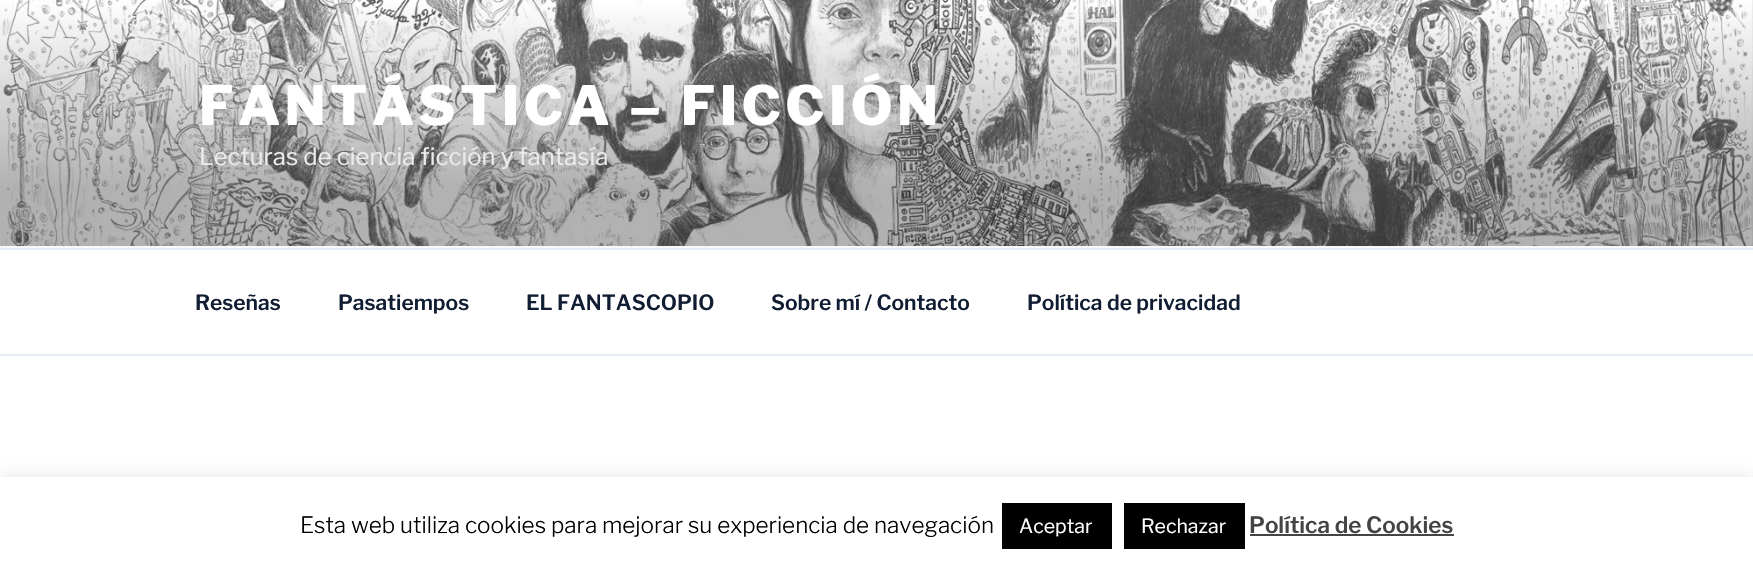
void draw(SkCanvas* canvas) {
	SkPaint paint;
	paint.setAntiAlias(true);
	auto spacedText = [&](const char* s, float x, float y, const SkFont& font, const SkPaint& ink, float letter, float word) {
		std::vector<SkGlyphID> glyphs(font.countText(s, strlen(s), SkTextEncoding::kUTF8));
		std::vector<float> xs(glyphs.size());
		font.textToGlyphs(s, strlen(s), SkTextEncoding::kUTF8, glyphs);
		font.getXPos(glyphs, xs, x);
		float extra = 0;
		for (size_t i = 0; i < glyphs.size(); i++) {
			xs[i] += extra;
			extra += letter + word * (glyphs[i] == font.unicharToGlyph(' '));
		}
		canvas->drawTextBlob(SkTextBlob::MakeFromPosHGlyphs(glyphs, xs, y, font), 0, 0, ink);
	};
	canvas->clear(0xffffffff);
	paint.setColor(0xfff7f9fc);
	canvas->drawRect(SkRect::MakeXYWH(0, 246, 1753, 2), paint);
	canvas->drawImageRect(SkImages::DeferredFromEncodedData(SkData::MakeFromFileName("img1.png")), SkRect::MakeXYWH(0, 0, 1753, 246), SkSamplingOptions());
	SkFont f1(fontMgr->matchFamilyStyle("Libre Franklin", SkFontStyle(100, SkFontStyle::kNormal_Width, SkFontStyle::kUpright_Slant)), 54);
	f1.setSubpixel(true);
	paint.setColor(0xffffffff);
	spacedText("FANTÁSTICA – FICCIÓN", 199, 125, f1, paint, 4.3, 0);
	SkFont f2(fontMgr->matchFamilyStyle("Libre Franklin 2", SkFontStyle(100, SkFontStyle::kNormal_Width, SkFontStyle::kUpright_Slant)), 24);
	f2.setSubpixel(true);
	paint.setColor(0xffebebeb);
	canvas->drawString("Lecturas de ciencia ficción y fantasía", 199, 165, f2, paint);
	paint.setColor(0xffe4ebf6);
	canvas->drawRect(SkRect::MakeXYWH(0, 248, 1753, 2), paint);
	canvas->drawRect(SkRect::MakeXYWH(0, 354, 1753, 2), paint);
	SkFont f3(fontMgr->matchFamilyStyle("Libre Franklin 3", SkFontStyle(100, SkFontStyle::kNormal_Width, SkFontStyle::kUpright_Slant)), 21);
	f3.setSubpixel(true);
	paint.setColor(0xff111d32);
	canvas->drawString("Reseñas", 195, 310, f3, paint);
	canvas->drawString("Pasatiempos", 338, 310, f3, paint);
	canvas->drawString("EL FANTASCOPIO", 526, 310, f3, paint);
	canvas->drawString("Sobre mí / Contacto", 771, 310, f3, paint);
	canvas->drawString("Política de privacidad", 1027, 310, f3, paint);
	paint.setColor(0x4dacabab);
	paint.setMaskFilter(SkMaskFilter::MakeBlur(kNormal_SkBlurStyle, 7.5));
	canvas->drawRect(SkRect::MakeXYWH(0, 476, 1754, 90), paint);
	paint.setMaskFilter(nullptr);
	paint.setColor(0xffffffff);
	canvas->drawRect(SkRect::MakeXYWH(0, 477, 1753, 89), paint);
	SkFont f4(fontMgr->matchFamilyStyle("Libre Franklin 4", SkFontStyle(100, SkFontStyle::kNormal_Width, SkFontStyle::kUpright_Slant)), 22.5);
	f4.setSubpixel(true);
	paint.setColor(0xff000000);
	canvas->drawString("Esta web utiliza cookies para mejorar su experiencia de navegación", 300, 533, f4, paint);
	canvas->drawRect(SkRect::MakeXYWH(1002, 503, 110, 46), paint);
	SkFont f5(fontMgr->matchFamilyStyle("Libre Franklin 2", SkFontStyle(100, SkFontStyle::kNormal_Width, SkFontStyle::kUpright_Slant)), 19.5);
	f5.setSubpixel(true);
	paint.setColor(0xffffffff);
	canvas->drawString("Aceptar", 1019, 533, f5, paint);
	paint.setColor(0xff000000);
	canvas->drawRect(SkRect::MakeXYWH(1124, 503, 121, 46), paint);
	paint.setColor(0xffffffff);
	canvas->drawString("Rechazar", 1141, 533, f5, paint);
	SkFont f6(fontMgr->matchFamilyStyle("Libre Franklin 3", SkFontStyle(100, SkFontStyle::kNormal_Width, SkFontStyle::kUpright_Slant)), 22.5);
	f6.setSubpixel(true);
	paint.setColor(0xff444444);
	canvas->drawString("Política de Cookies", 1249, 533, f6, paint);
	canvas->drawRect(SkRect::MakeXYWH(1250, 534, 204, 2), paint);
}
